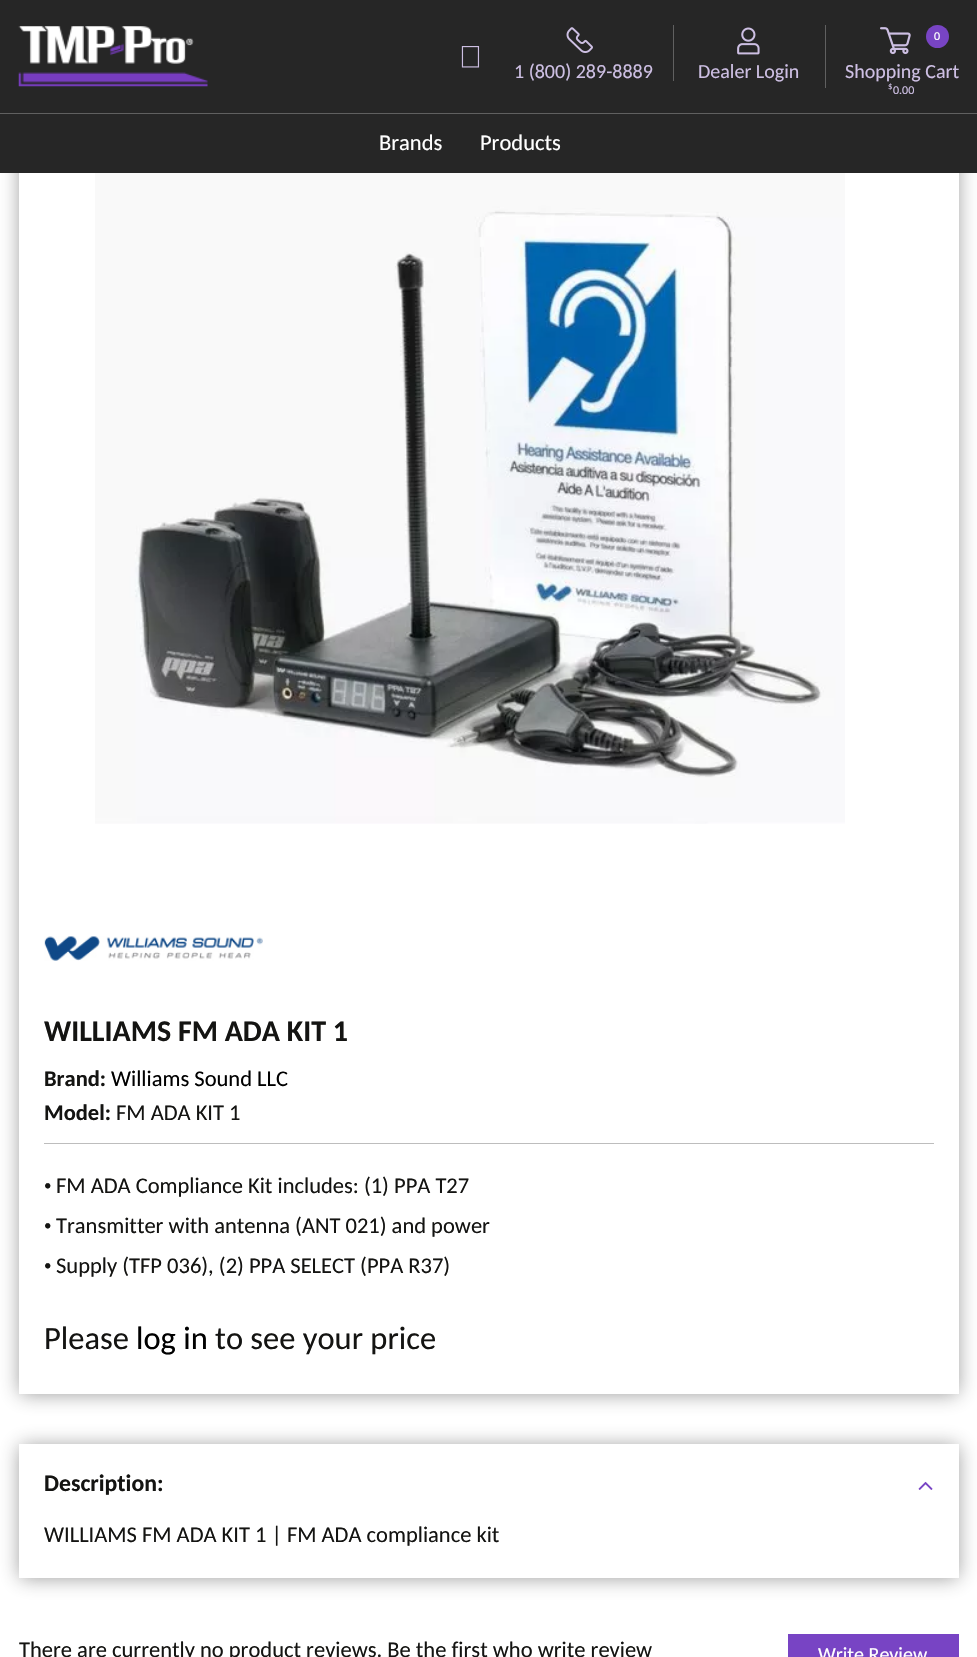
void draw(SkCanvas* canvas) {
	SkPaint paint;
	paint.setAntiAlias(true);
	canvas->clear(0xffffffff);
	paint.setColor(0x80323232);
	paint.setMaskFilter(SkMaskFilter::MakeBlur(kNormal_SkBlurStyle, 9.5));
	canvas->drawRect(SkRect::MakeXYWH(20, 95, 938, 1299), paint);
	paint.setMaskFilter(nullptr);
	paint.setColor(0xff262626);
	canvas->drawRect(SkRect::MakeXYWH(0, 0, 977, 113), paint);
	canvas->drawImageRect(SkImages::DeferredFromEncodedData(SkData::MakeFromFileName("img1.png")), SkRect::MakeXYWH(18, 26, 190, 61), SkSamplingOptions());
	canvas->drawImageRect(SkImages::DeferredFromEncodedData(SkData::MakeFromFileName("img2.png")), SkRect::MakeXYWH(461, 46, 19, 22), SkSamplingOptions());
	paint.setColor(0xff606060);
	canvas->drawRect(SkRect::MakeXYWH(673, 25, 1, 56), paint);
	canvas->drawImageRect(SkImages::DeferredFromEncodedData(SkData::MakeFromFileName("img3.png")), SkRect::MakeXYWH(566, 27, 27, 26), SkSamplingOptions());
	SkFont f1(fontMgr->matchFamilyStyle("Carlito", SkFontStyle::Normal()), 20);
	f1.setSubpixel(true);
	paint.setColor(0xffcdbfe3);
	canvas->drawString("1 (800) 289-8889", 514, 78, f1, paint);
	canvas->drawImageRect(SkImages::DeferredFromEncodedData(SkData::MakeFromFileName("img4.png")), SkRect::MakeXYWH(737, 27, 23, 28), SkSamplingOptions());
	canvas->drawString("Dealer Login", 698, 78, f1, paint);
	paint.setColor(0xff606060);
	canvas->drawRect(SkRect::MakeXYWH(825, 25, 1, 63), paint);
	canvas->drawImageRect(SkImages::DeferredFromEncodedData(SkData::MakeFromFileName("img5.png")), SkRect::MakeXYWH(880, 27, 31, 28), SkSamplingOptions());
	paint.setColor(0xff7844c4);
	canvas->drawCircle(937.5, 36.5, 11.5, paint);
	SkFont f2(fontMgr->matchFamilyStyle("Carlito", SkFontStyle::Normal()), 12);
	f2.setSubpixel(true);
	paint.setColor(0xffffffff);
	canvas->drawString("0", 934, 40, f2, paint);
	paint.setColor(0xffcdbfe3);
	canvas->drawString("Shopping Cart", 845, 78, f1, paint);
	SkFont f3(fontMgr->matchFamilyStyle("Carlito", SkFontStyle::Normal()), 9);
	f3.setSubpixel(true);
	canvas->drawString("$", 888, 89, f3, paint);
	canvas->drawString("0.00", 893, 94, f2, paint);
	paint.setColor(0xff262626);
	canvas->drawRect(SkRect::MakeXYWH(0, 114, 977, 59), paint);
	paint.setColor(0xff606060);
	canvas->drawRect(SkRect::MakeXYWH(0, 113, 977, 1), paint);
	SkFont f4(fontMgr->matchFamilyStyle("Carlito", SkFontStyle::Normal()), 22.5);
	f4.setSubpixel(true);
	paint.setColor(0xffffffff);
	canvas->drawString("Brands", 379, 150, f4, paint);
	canvas->drawString("Products", 480, 150, f4, paint);
	canvas->drawRect(SkRect::MakeXYWH(19, 173, 940, 1221), paint);
	canvas->drawImageRect(SkImages::DeferredFromEncodedData(SkData::MakeFromFileName("img6.png")), SkRect::MakeXYWH(95, 173, 750, 651), SkSamplingOptions());
	canvas->drawImageRect(SkImages::DeferredFromEncodedData(SkData::MakeFromFileName("img7.png")), SkRect::MakeXYWH(44, 936, 219, 25), SkSamplingOptions());
	SkFont f5(fontMgr->matchFamilyStyle("Carlito", SkFontStyle::Bold()), 30);
	f5.setSubpixel(true);
	paint.setColor(0xff141412);
	canvas->drawString("WILLIAMS FM ADA KIT 1", 44, 1041, f5, paint);
	SkFont f6(fontMgr->matchFamilyStyle("Carlito", SkFontStyle::Bold()), 22.5);
	f6.setSubpixel(true);
	canvas->drawString("Brand:", 44, 1086, f6, paint);
	paint.setColor(0xff000000);
	canvas->drawString("Williams Sound LLC", 111, 1086, f4, paint);
	paint.setColor(0xffbdbdbd);
	canvas->drawRect(SkRect::MakeXYWH(44, 1143, 890, 1), paint);
	paint.setColor(0xff141412);
	canvas->drawString("Model:", 44, 1120, f6, paint);
	canvas->drawString("FM ADA KIT 1", 116, 1120, f4, paint);
	SkFont f7(fontMgr->matchFamilyStyle("Carlito", SkFontStyle::Normal()), 15);
	f7.setSubpixel(true);
	canvas->drawString("•", 44, 1190, f7, paint);
	canvas->drawString("FM ADA Compliance Kit includes: (1) PPA T27", 56, 1193, f4, paint);
	canvas->drawString("•", 44, 1230, f7, paint);
	canvas->drawString("Transmitter with antenna (ANT 021) and power", 56, 1233, f4, paint);
	canvas->drawString("•", 44, 1270, f7, paint);
	canvas->drawString("Supply (TFP 036), (2) PPA SELECT (PPA R37)", 56, 1273, f4, paint);
	SkFont f8(fontMgr->matchFamilyStyle("Carlito", SkFontStyle::Normal()), 32.5);
	f8.setSubpixel(true);
	canvas->drawString("Please", 44, 1349, f8, paint);
	paint.setColor(0xff000000);
	canvas->drawString("log in", 136, 1349, f8, paint);
	paint.setColor(0xff141412);
	canvas->drawString("to see your price", 215, 1349, f8, paint);
	paint.setColor(0x80323232);
	paint.setMaskFilter(SkMaskFilter::MakeBlur(kNormal_SkBlurStyle, 9.5));
	canvas->drawRect(SkRect::MakeXYWH(20, 1446, 938, 132), paint);
	paint.setMaskFilter(nullptr);
	paint.setColor(0xffffffff);
	canvas->drawRect(SkRect::MakeXYWH(19, 1444, 940, 134), paint);
	SkFont f9(fontMgr->matchFamilyStyle("Carlito", SkFontStyle::Bold()), 23.75);
	f9.setSubpixel(true);
	paint.setColor(0xff141412);
	canvas->drawString("Description:", 44, 1491, f9, paint);
	canvas->drawImageRect(SkImages::DeferredFromEncodedData(SkData::MakeFromFileName("img8.png")), SkRect::MakeXYWH(918, 1481, 15, 9), SkSamplingOptions());
	canvas->drawString("WILLIAMS FM ADA KIT 1 | FM ADA compliance kit", 44, 1542, f4, paint);
	canvas->drawString("There are currently no product reviews. Be the first who write review", 19, 1657, f4, paint);
	paint.setColor(0xff7844c4);
	canvas->drawRect(SkRect::MakeXYWH(788, 1634, 171, 23), paint);
	paint.setColor(0xffffffff);
	canvas->drawString("Write Review", 818, 1661, f1, paint);
}
